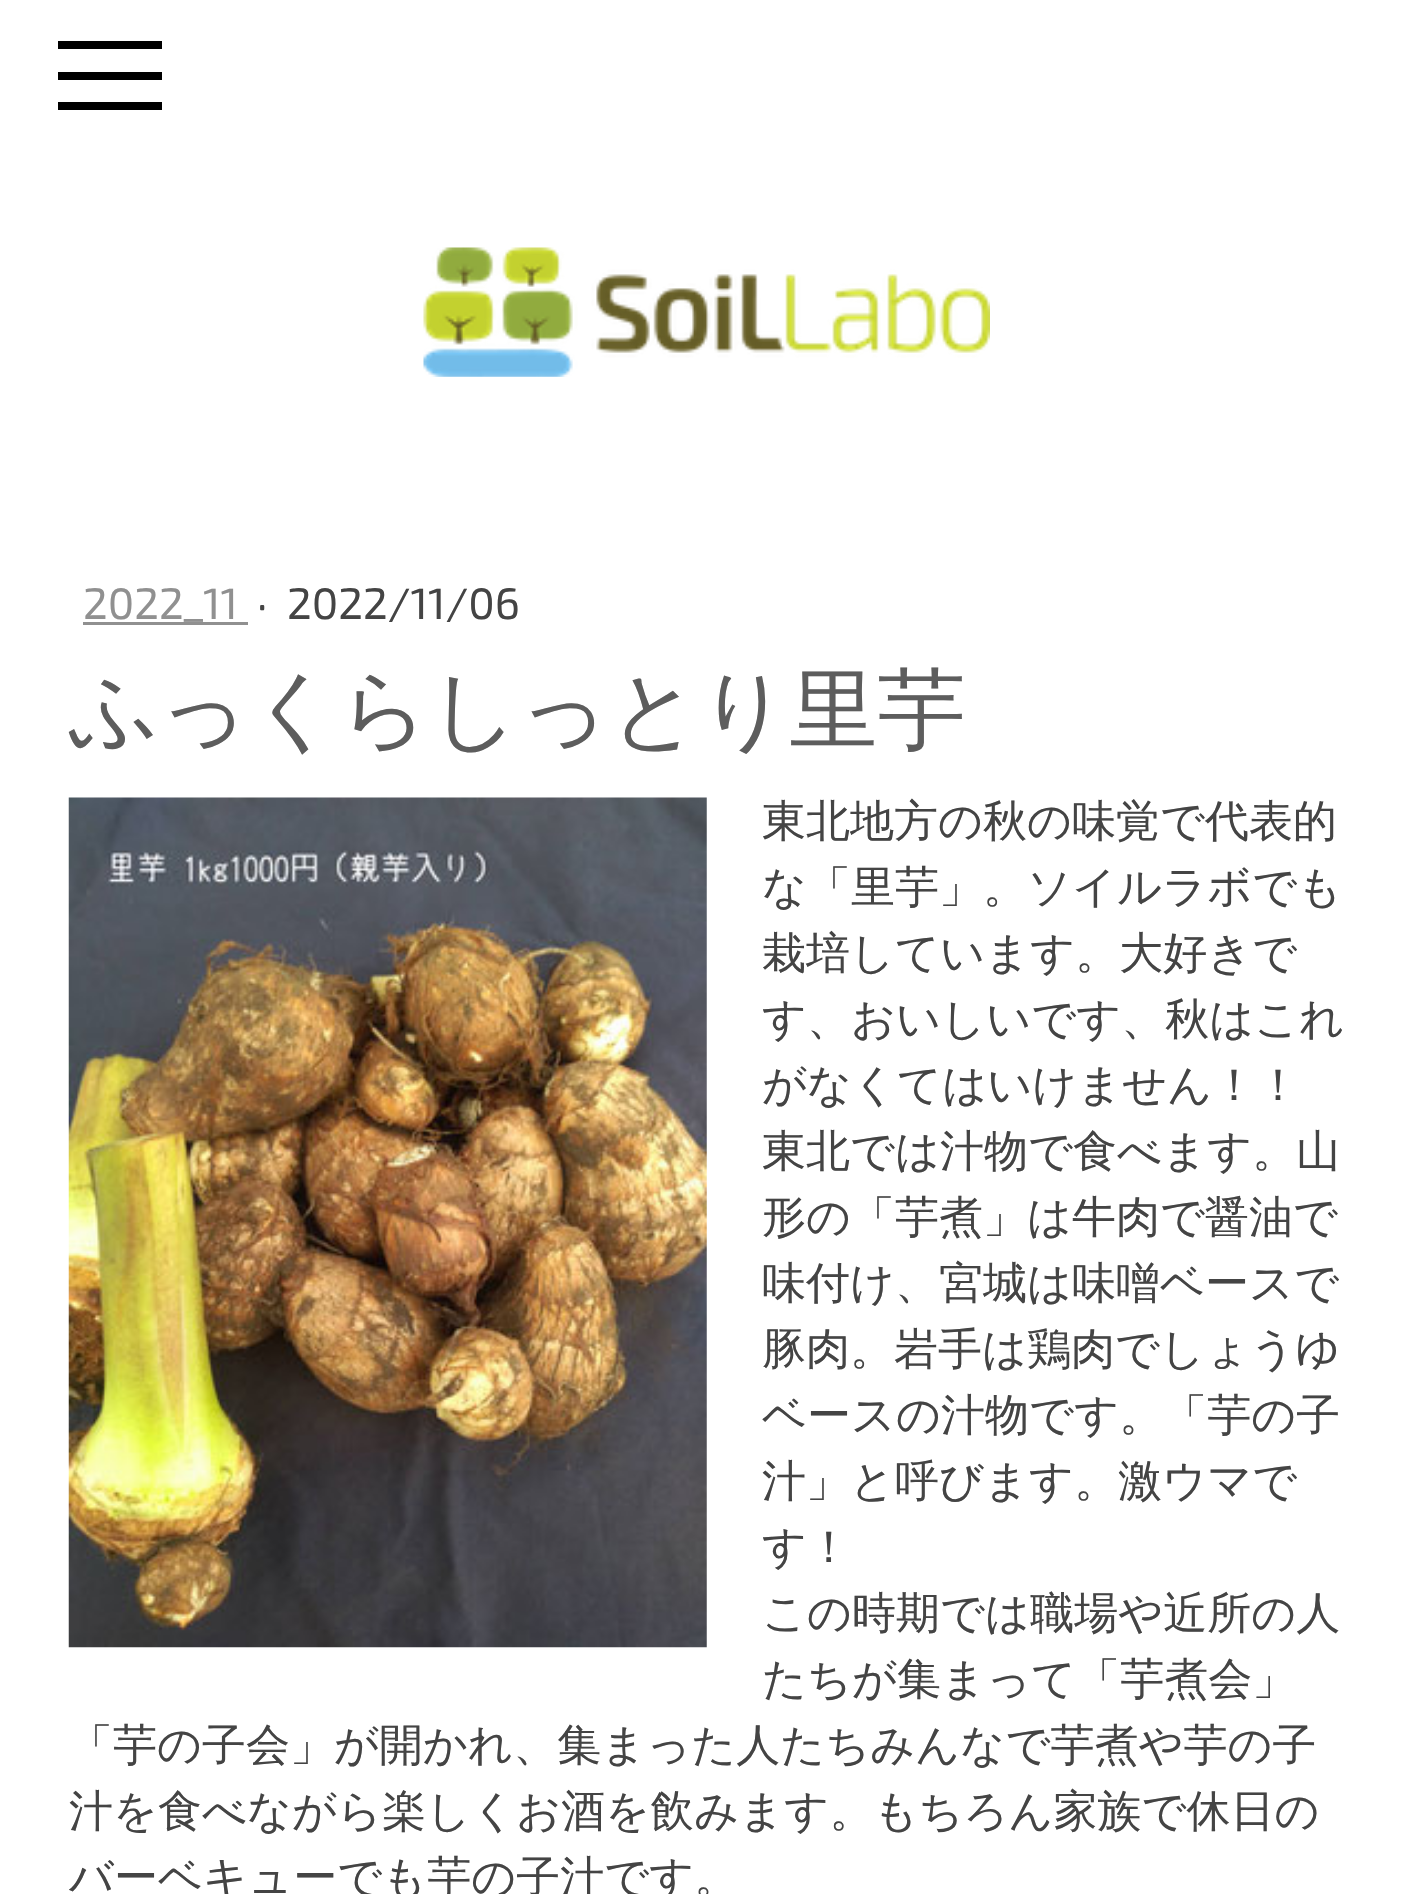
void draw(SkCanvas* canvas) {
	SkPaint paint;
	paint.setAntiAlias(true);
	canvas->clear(0xffffffff);
	paint.setColor(0xff000000);
	canvas->drawRect(SkRect::MakeXYWH(58, 72, 104, 8), paint);
	canvas->drawRect(SkRect::MakeXYWH(58, 41, 104, 8), paint);
	canvas->drawRect(SkRect::MakeXYWH(58, 102, 104, 8), paint);
	canvas->drawImageRect(SkImages::DeferredFromEncodedData(SkData::MakeFromFileName("img1.png")), SkRect::MakeXYWH(423, 247, 567, 130), SkSamplingOptions());
	SkFont f1(fontMgr->matchFamilyStyle("Exo 2", SkFontStyle::Normal()), 44);
	f1.setSubpixel(true);
	paint.setColor(0xff909090);
	canvas->drawString("2022_11", 83, 619, f1, paint);
	canvas->drawRect(SkRect::MakeXYWH(83, 622, 165, 3), paint);
	paint.setColor(0xff444444);
	canvas->drawString("·", 257, 619, f1, paint);
	canvas->drawString("2022/11/06", 287, 619, f1, paint);
	SkFont f2(fontMgr->matchFamilyStyle("WenQuanYi Zen Hei", SkFontStyle(500, SkFontStyle::kNormal_Width, SkFontStyle::kUpright_Slant)), 88);
	f2.setSubpixel(true);
	paint.setColor(0xff5d5d5d);
	canvas->drawString("ふっくらしっとり里芋", 69, 740, f2, paint);
	canvas->drawImageRect(SkImages::DeferredFromEncodedData(SkData::MakeFromFileName("img2.png")), SkRect::MakeXYWH(68, 797, 639, 851), SkSamplingOptions());
	SkFont f3(fontMgr->matchFamilyStyle("WenQuanYi Zen Hei", SkFontStyle(500, SkFontStyle::kNormal_Width, SkFontStyle::kUpright_Slant)), 44);
	f3.setSubpixel(true);
	paint.setColor(0xff444444);
	canvas->drawString("東北地方の秋の味覚で代表的", 762, 836, f3, paint);
	canvas->drawString("な「里芋」。ソイルラボでも", 762, 902, f3, paint);
	canvas->drawString("栽培しています。大好きで", 762, 968, f3, paint);
	canvas->drawString("す、おいしいです、秋はこれ", 762, 1034, f3, paint);
	canvas->drawString("がなくてはいけません！！", 762, 1100, f3, paint);
	canvas->drawString("東北では汁物で食べます。山", 762, 1166, f3, paint);
	canvas->drawString("形の「芋煮」は牛肉で醤油で", 762, 1232, f3, paint);
	canvas->drawString("味付け、宮城は味噌ベースで", 762, 1298, f3, paint);
	canvas->drawString("豚肉。岩手は鶏肉でしょうゆ", 762, 1364, f3, paint);
	canvas->drawString("ベースの汁物です。「芋の子", 762, 1430, f3, paint);
	canvas->drawString("汁」と呼びます。激ウマで", 762, 1496, f3, paint);
	canvas->drawString("す！", 762, 1562, f3, paint);
	canvas->drawString("この時期では職場や近所の人", 762, 1628, f3, paint);
	canvas->drawString("たちが集まって「芋煮会」", 762, 1694, f3, paint);
	canvas->drawString("「芋の子会」が開かれ、集まった人たちみんなで芋煮や芋の子", 69, 1760, f3, paint);
	canvas->drawString("汁を食べながら楽しくお酒を飲みます。もちろん家族で休日の", 69, 1826, f3, paint);
	canvas->drawString("バーベキューでも芋の子汁です。", 69, 1892, f3, paint);
}
